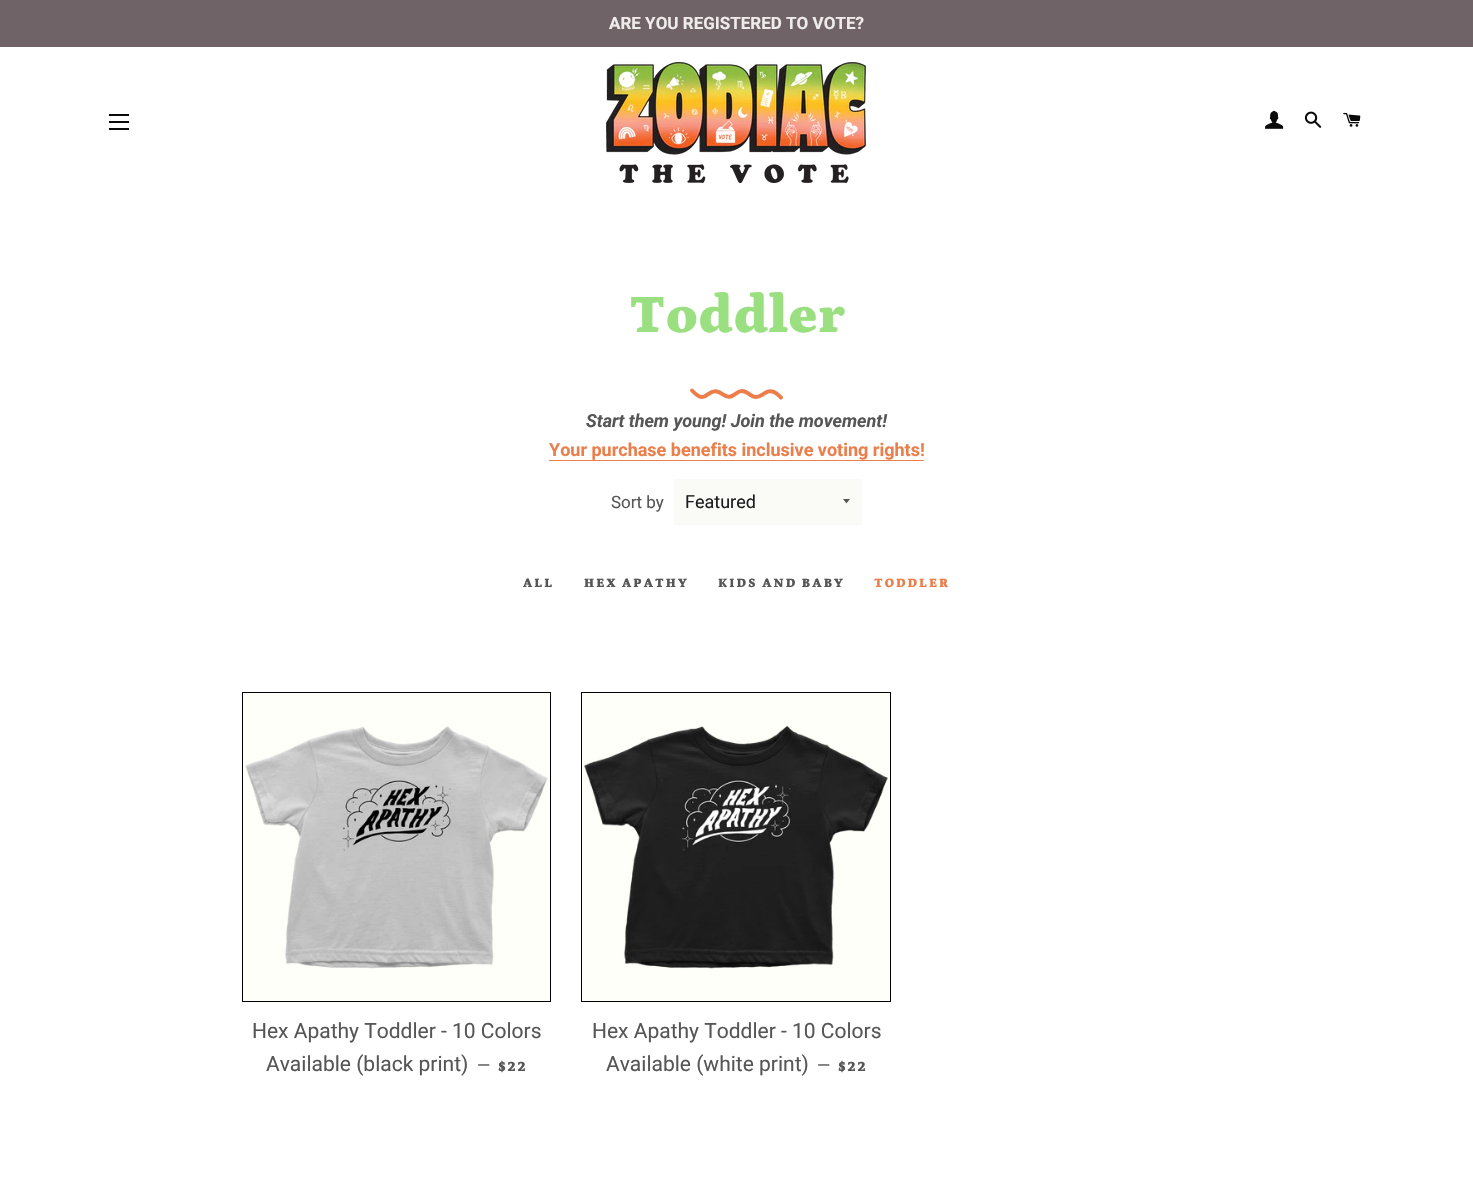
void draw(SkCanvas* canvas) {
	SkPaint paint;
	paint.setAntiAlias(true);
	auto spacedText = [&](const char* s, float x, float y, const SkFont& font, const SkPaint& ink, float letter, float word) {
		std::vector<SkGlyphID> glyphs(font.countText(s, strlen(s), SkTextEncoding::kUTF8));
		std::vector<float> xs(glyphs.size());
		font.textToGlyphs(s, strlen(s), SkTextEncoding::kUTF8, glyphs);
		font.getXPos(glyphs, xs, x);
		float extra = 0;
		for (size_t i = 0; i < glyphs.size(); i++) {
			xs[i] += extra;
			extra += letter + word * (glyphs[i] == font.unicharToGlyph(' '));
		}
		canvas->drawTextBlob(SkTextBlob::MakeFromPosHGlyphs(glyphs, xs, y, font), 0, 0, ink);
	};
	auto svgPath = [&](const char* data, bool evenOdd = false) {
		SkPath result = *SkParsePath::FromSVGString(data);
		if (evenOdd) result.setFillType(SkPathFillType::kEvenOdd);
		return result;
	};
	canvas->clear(0xffffffff);
	paint.setColor(0xff6f6367);
	canvas->drawRect(SkRect::MakeXYWH(0, 0, 1473, 47), paint);
	SkFont f1(fontMgr->matchFamilyStyle("Roboto", SkFontStyle::Bold()), 17);
	f1.setSubpixel(true);
	paint.setColor(0xfff0ecec);
	canvas->drawString("ARE YOU REGISTERED TO VOTE?", 609, 29, f1, paint);
	paint.setColor(0xff0a0a0a);
	canvas->drawRect(SkRect::MakeXYWH(109, 114, 20, 2), paint);
	canvas->drawRect(SkRect::MakeXYWH(109, 121, 20, 2), paint);
	canvas->drawRect(SkRect::MakeXYWH(109, 128, 20, 2), paint);
	canvas->drawImageRect(SkImages::DeferredFromEncodedData(SkData::MakeFromFileName("img1.png")), SkRect::MakeXYWH(606, 62, 260, 121), SkSamplingOptions());
	canvas->drawImageRect(SkImages::DeferredFromEncodedData(SkData::MakeFromFileName("img2.png")), SkRect::MakeXYWH(1265, 110, 19, 19), SkSamplingOptions());
	canvas->drawImageRect(SkImages::DeferredFromEncodedData(SkData::MakeFromFileName("img3.png")), SkRect::MakeXYWH(1304, 111, 18, 17), SkSamplingOptions());
	canvas->drawImageRect(SkImages::DeferredFromEncodedData(SkData::MakeFromFileName("img4.png")), SkRect::MakeXYWH(1343, 112, 18, 15), SkSamplingOptions());
	SkFont f2(fontMgr->matchFamilyStyle("Petrona", SkFontStyle(900, SkFontStyle::kNormal_Width, SkFontStyle::kUpright_Slant)), 54.5);
	f2.setSubpixel(true);
	paint.setColor(0xff9ae081);
	canvas->drawString("Toddler", 629, 332, f2, paint);
	paint.setStroke(true);
	paint.setStrokeWidth(4);
	paint.setStrokeCap(SkPaint::kRound_Cap);
	paint.setStrokeJoin(SkPaint::kRound_Join);
	paint.setColor(0xffeb7e4b);
	canvas->drawPath(svgPath("M781 397.5C776.5 393 771.5 388.5 765 393C762 394.5 760 397 756 397C750.5 397 748 391 742 391C737 391 735 395.5 730.5 396.5C724 398 722.5 392.5 717 391.5C706 389 706.5 406 692 390.5"), paint);
	SkFont f3(fontMgr->matchFamilyStyle("Roboto", SkFontStyle::BoldItalic()), 18);
	f3.setSubpixel(true);
	paint.setStroke(false);
	paint.setColor(0xff565656);
	canvas->drawString("Start them young! Join the movement!", 586, 427, f3, paint);
	SkFont f4(fontMgr->matchFamilyStyle("Roboto", SkFontStyle::Bold()), 18);
	f4.setSubpixel(true);
	paint.setColor(0xffeb7e4b);
	canvas->drawString("Your purchase benefits inclusive voting rights!", 549, 456, f4, paint);
	canvas->drawRect(SkRect::MakeXYWH(549, 460, 375, 1), paint);
	SkFont f5(fontMgr->matchFamilyStyle("Roboto", SkFontStyle::Normal()), 17);
	f5.setSubpixel(true);
	paint.setColor(0xff565656);
	canvas->drawString("Sort by", 611, 508, f5, paint);
	paint.setColor(0xfffafaf6);
	canvas->drawRect(SkRect::MakeXYWH(674, 479, 188, 46), paint);
	paint.setColor(0xff565656);
	canvas->drawPath(svgPath("M843 499C847.5 504.5 845.5 504.5 850 499Z"), paint);
	SkFont f6(fontMgr->matchFamilyStyle("Roboto", SkFontStyle::Normal()), 18);
	f6.setSubpixel(true);
	paint.setColor(0xff1c1d1d);
	canvas->drawString("Featured", 685, 508, f6, paint);
	SkFont f7(fontMgr->matchFamilyStyle("Petrona", SkFontStyle(900, SkFontStyle::kNormal_Width, SkFontStyle::kUpright_Slant)), 13);
	f7.setSubpixel(true);
	paint.setColor(0xff565656);
	spacedText("ALL", 523, 587, f7, paint, 2, 0);
	spacedText("HEX APATHY", 584, 587, f7, paint, 2, 0);
	spacedText("KIDS AND BABY", 718, 587, f7, paint, 2, 0);
	paint.setColor(0xffeb7e4b);
	spacedText("TODDLER", 874, 587, f7, paint, 2, 0);
	paint.setStroke(true);
	paint.setStrokeWidth(1);
	paint.setStrokeCap(SkPaint::kButt_Cap);
	paint.setStrokeJoin(SkPaint::kMiter_Join);
	paint.setColor(0xff000000);
	canvas->drawRect(SkRect::MakeXYWH(242.5, 692.5, 308, 309), paint);
	paint.setStroke(false);
	paint.setColor(0xfffffffa);
	canvas->drawRect(SkRect::MakeXYWH(243, 693, 307, 308), paint);
	canvas->drawImageRect(SkImages::DeferredFromEncodedData(SkData::MakeFromFileName("img5.png")), SkRect::MakeXYWH(245, 726, 303, 243), SkSamplingOptions());
	SkFont f8(fontMgr->matchFamilyStyle("Roboto", SkFontStyle::Normal()), 21);
	f8.setSubpixel(true);
	paint.setColor(0xff565656);
	canvas->drawString("Hex Apathy Toddler - 10 Colors", 252, 1038, f8, paint);
	canvas->drawString("Available (black print)", 266, 1071, f8, paint);
	canvas->drawString("—", 477, 1071, f5, paint);
	SkFont f9(fontMgr->matchFamilyStyle("Petrona", SkFontStyle(900, SkFontStyle::kNormal_Width, SkFontStyle::kUpright_Slant)), 14);
	f9.setSubpixel(true);
	spacedText("$22", 498, 1071, f9, paint, 1.5, 0);
	paint.setStroke(true);
	paint.setColor(0xff000000);
	canvas->drawRect(SkRect::MakeXYWH(581.5, 692.5, 309, 309), paint);
	paint.setStroke(false);
	paint.setColor(0xfffffffa);
	canvas->drawRect(SkRect::MakeXYWH(582, 693, 308, 308), paint);
	canvas->drawImageRect(SkImages::DeferredFromEncodedData(SkData::MakeFromFileName("img6.png")), SkRect::MakeXYWH(584, 725, 304, 244), SkSamplingOptions());
	paint.setColor(0xff565656);
	canvas->drawString("Hex Apathy Toddler - 10 Colors", 592, 1038, f8, paint);
	canvas->drawString("Available (white print)", 606, 1071, f8, paint);
	canvas->drawString("—", 817, 1071, f5, paint);
	spacedText("$22", 838, 1071, f9, paint, 1.5, 0);
}
